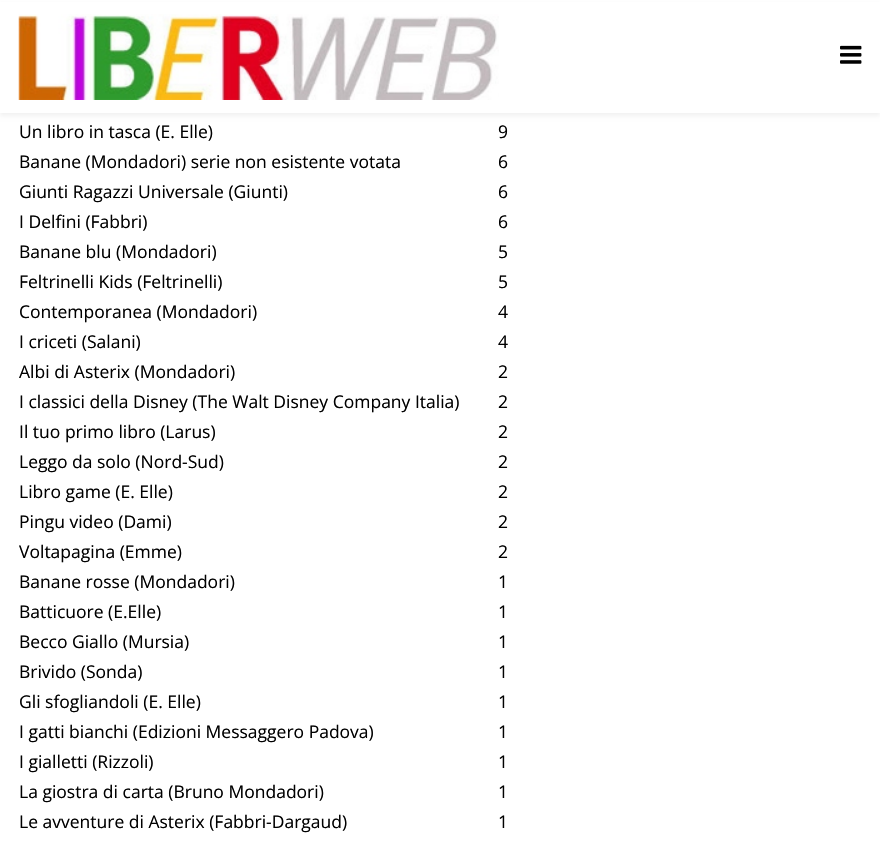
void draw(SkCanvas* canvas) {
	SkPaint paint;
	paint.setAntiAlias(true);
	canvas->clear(0xffffffff);
	paint.setColor(0x0d000000);
	paint.setMaskFilter(SkMaskFilter::MakeBlur(kNormal_SkBlurStyle, 2));
	canvas->drawRect(SkRect::MakeXYWH(0, 4, 880, 112), paint);
	paint.setMaskFilter(nullptr);
	paint.setColor(0xffffffff);
	canvas->drawRect(SkRect::MakeXYWH(0, 2, 880, 111), paint);
	canvas->drawImageRect(SkImages::DeferredFromEncodedData(SkData::MakeFromFileName("img1.png")), SkRect::MakeXYWH(18, 14, 481, 86), SkSamplingOptions());
	canvas->drawImageRect(SkImages::DeferredFromEncodedData(SkData::MakeFromFileName("img2.png")), SkRect::MakeXYWH(840, 45, 22, 19), SkSamplingOptions());
	SkFont f1(fontMgr->matchFamilyStyle("Open Sans", SkFontStyle::Normal()), 17.5);
	f1.setSubpixel(true);
	paint.setColor(0xff000000);
	canvas->drawString("Un libro in tasca (E. Elle)", 19, 138, f1, paint);
	canvas->drawString("9", 498, 138, f1, paint);
	canvas->drawString("Banane (Mondadori) serie non esistente votata", 19, 168, f1, paint);
	canvas->drawString("6", 498, 168, f1, paint);
	canvas->drawString("Giunti Ragazzi Universale (Giunti)", 19, 198, f1, paint);
	canvas->drawString("6", 498, 198, f1, paint);
	canvas->drawString("I Delfini (Fabbri)", 19, 228, f1, paint);
	canvas->drawString("6", 498, 228, f1, paint);
	canvas->drawString("Banane blu (Mondadori)", 19, 258, f1, paint);
	canvas->drawString("5", 498, 258, f1, paint);
	canvas->drawString("Feltrinelli Kids (Feltrinelli)", 19, 288, f1, paint);
	canvas->drawString("5", 498, 288, f1, paint);
	canvas->drawString("Contemporanea (Mondadori)", 19, 318, f1, paint);
	canvas->drawString("4", 498, 318, f1, paint);
	canvas->drawString("I criceti (Salani)", 19, 348, f1, paint);
	canvas->drawString("4", 498, 348, f1, paint);
	canvas->drawString("Albi di Asterix (Mondadori)", 19, 378, f1, paint);
	canvas->drawString("2", 498, 378, f1, paint);
	canvas->drawString("I classici della Disney (The Walt Disney Company Italia)", 19, 408, f1, paint);
	canvas->drawString("2", 498, 408, f1, paint);
	canvas->drawString("Il tuo primo libro (Larus)", 19, 438, f1, paint);
	canvas->drawString("2", 498, 438, f1, paint);
	canvas->drawString("Leggo da solo (Nord-Sud)", 19, 468, f1, paint);
	canvas->drawString("2", 498, 468, f1, paint);
	canvas->drawString("Libro game (E. Elle)", 19, 498, f1, paint);
	canvas->drawString("2", 498, 498, f1, paint);
	canvas->drawString("Pingu video (Dami)", 19, 528, f1, paint);
	canvas->drawString("2", 498, 528, f1, paint);
	canvas->drawString("Voltapagina (Emme)", 19, 558, f1, paint);
	canvas->drawString("2", 498, 558, f1, paint);
	canvas->drawString("Banane rosse (Mondadori)", 19, 588, f1, paint);
	canvas->drawString("1", 498, 588, f1, paint);
	canvas->drawString("Batticuore (E.Elle)", 19, 618, f1, paint);
	canvas->drawString("1", 498, 618, f1, paint);
	canvas->drawString("Becco Giallo (Mursia)", 19, 648, f1, paint);
	canvas->drawString("1", 498, 648, f1, paint);
	canvas->drawString("Brivido (Sonda)", 19, 678, f1, paint);
	canvas->drawString("1", 498, 678, f1, paint);
	canvas->drawString("Gli sfogliandoli (E. Elle)", 19, 708, f1, paint);
	canvas->drawString("1", 498, 708, f1, paint);
	canvas->drawString("I gatti bianchi (Edizioni Messaggero Padova)", 19, 738, f1, paint);
	canvas->drawString("1", 498, 738, f1, paint);
	canvas->drawString("I gialletti (Rizzoli)", 19, 768, f1, paint);
	canvas->drawString("1", 498, 768, f1, paint);
	canvas->drawString("La giostra di carta (Bruno Mondadori)", 19, 798, f1, paint);
	canvas->drawString("1", 498, 798, f1, paint);
	canvas->drawString("Le avventure di Asterix (Fabbri-Dargaud)", 19, 828, f1, paint);
	canvas->drawString("1", 498, 828, f1, paint);
}
